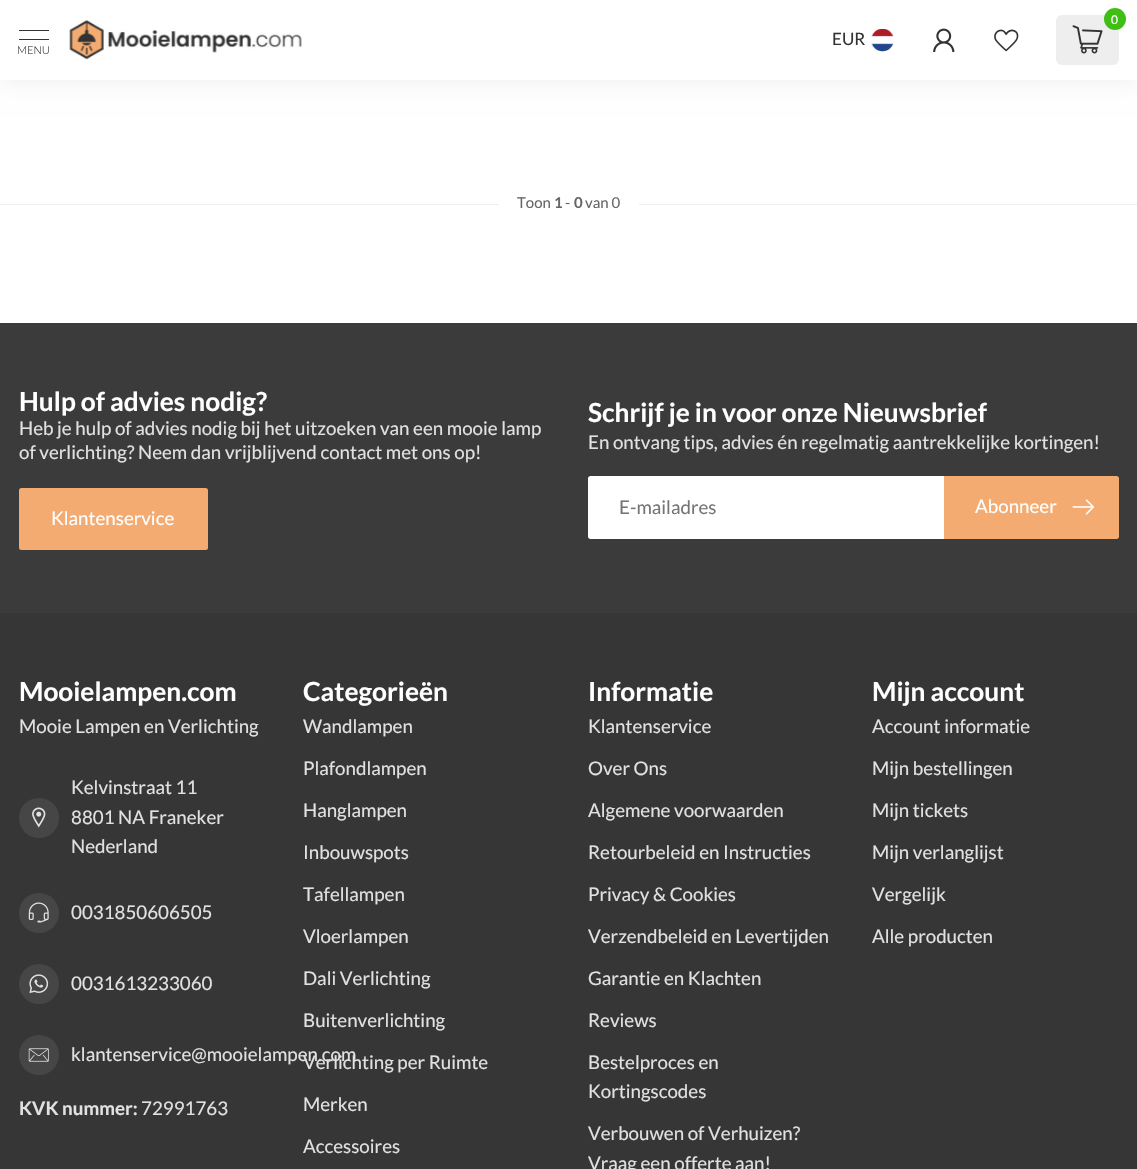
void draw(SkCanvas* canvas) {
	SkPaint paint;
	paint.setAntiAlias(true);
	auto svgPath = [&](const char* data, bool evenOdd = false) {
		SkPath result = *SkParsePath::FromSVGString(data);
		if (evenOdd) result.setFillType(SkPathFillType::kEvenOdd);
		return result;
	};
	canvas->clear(0xffffffff);
	paint.setColor(0x12000000);
	paint.setMaskFilter(SkMaskFilter::MakeBlur(kNormal_SkBlurStyle, 12.5));
	canvas->drawRect(SkRect::MakeXYWH(0, -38, 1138, 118), paint);
	paint.setMaskFilter(nullptr);
	paint.setColor(0xffffffff);
	canvas->drawRect(SkRect::MakeXYWH(0, 0, 1137, 80), paint);
	paint.setColor(0xffeeeeee);
	canvas->drawRoundRect(SkRect::MakeXYWH(1056, 15, 63, 50), 6, 6, paint);
	paint.setColor(0xff40be15);
	canvas->drawCircle(1115, 19, 11, paint);
	SkFont f1(fontMgr->matchFamilyStyle("Lato", SkFontStyle::Normal()), 12);
	f1.setSubpixel(true);
	paint.setColor(0xffffffff);
	canvas->drawString("0", 1111, 24, f1, paint);
	canvas->drawImageRect(SkImages::DeferredFromEncodedData(SkData::MakeFromFileName("img1.png")), SkRect::MakeXYWH(1072, 25, 31, 29), SkSamplingOptions());
	SkFont f2(fontMgr->matchFamilyStyle("Lato", SkFontStyle::Normal()), 17);
	f2.setSubpixel(true);
	paint.setColor(0xff333333);
	canvas->drawString("EUR", 832, 45, f2, paint);
	canvas->drawImageRect(SkImages::DeferredFromEncodedData(SkData::MakeFromFileName("img2.png")), SkRect::MakeXYWH(871, 29, 23, 23), SkSamplingOptions());
	canvas->drawImageRect(SkImages::DeferredFromEncodedData(SkData::MakeFromFileName("img3.png")), SkRect::MakeXYWH(933, 28, 22, 24), SkSamplingOptions());
	canvas->drawImageRect(SkImages::DeferredFromEncodedData(SkData::MakeFromFileName("img4.png")), SkRect::MakeXYWH(994, 29, 25, 23), SkSamplingOptions());
	canvas->drawRect(SkRect::MakeXYWH(19, 30, 30, 1), paint);
	canvas->drawRect(SkRect::MakeXYWH(19, 39, 30, 1), paint);
	SkFont f3(fontMgr->matchFamilyStyle("Lato", SkFontStyle(300, SkFontStyle::kNormal_Width, SkFontStyle::kUpright_Slant)), 11);
	f3.setSubpixel(true);
	canvas->drawString("MENU", 17, 54, f3, paint);
	canvas->drawImageRect(SkImages::DeferredFromEncodedData(SkData::MakeFromFileName("img5.png")), SkRect::MakeXYWH(69, 20, 233, 40), SkSamplingOptions());
	paint.setColor(0xffeeeeee);
	canvas->drawRect(SkRect::MakeXYWH(0, 204, 1137, 1), paint);
	paint.setColor(0xffffffff);
	canvas->drawRect(SkRect::MakeXYWH(499, 204, 140, 1), paint);
	SkFont f4(fontMgr->matchFamilyStyle("Lato", SkFontStyle::Normal()), 15);
	f4.setSubpixel(true);
	paint.setColor(0xff666666);
	canvas->drawString("Toon", 517, 208, f4, paint);
	SkFont f5(fontMgr->matchFamilyStyle("Lato", SkFontStyle::Bold()), 15);
	f5.setSubpixel(true);
	canvas->drawString("1", 554, 208, f5, paint);
	canvas->drawString("-", 565, 208, f4, paint);
	canvas->drawString("0", 574, 208, f5, paint);
	canvas->drawString("van 0", 585, 208, f4, paint);
	paint.setColor(0xff363636);
	canvas->drawRect(SkRect::MakeXYWH(0, 613, 1137, 556), paint);
	paint.setColor(0xff3b3b3b);
	canvas->drawRect(SkRect::MakeXYWH(0, 323, 1137, 290), paint);
	SkFont f6(fontMgr->matchFamilyStyle("Lato", SkFontStyle::Bold()), 26.25);
	f6.setSubpixel(true);
	paint.setColor(0xffffffff);
	canvas->drawString("Hulp of advies nodig?", 19, 411, f6, paint);
	SkFont f7(fontMgr->matchFamilyStyle("Lato", SkFontStyle::Normal()), 18.75);
	f7.setSubpixel(true);
	paint.setColor(0xffe1e1e1);
	canvas->drawString("Heb je hulp of advies nodig bij het uitzoeken van een mooie lamp", 19, 435, f7, paint);
	canvas->drawString("of verlichting? Neem dan vrijblijvend contact met ons op!", 19, 459, f7, paint);
	paint.setColor(0xfff4ab71);
	canvas->drawRoundRect(SkRect::MakeXYWH(19, 488, 189, 62), 2.5, 2.5, paint);
	paint.setColor(0xffffffff);
	canvas->drawString("Klantenservice", 51, 525, f7, paint);
	canvas->drawString("Schrijf je in voor onze Nieuwsbrief", 588, 422, f6, paint);
	paint.setColor(0xffe1e1e1);
	canvas->drawString("En ontvang tips, advies én regelmatig aantrekkelijke kortingen!", 588, 449, f7, paint);
	paint.setColor(0xffffffff);
	canvas->drawPath(svgPath("M590.5 476H944V539H590.5C589 539 588 538 588 536.5V478.5C588 477 589 476 590.5 476Z"), paint);
	paint.setColor(0xff757575);
	canvas->drawString("E-mailadres", 619, 514, f7, paint);
	paint.setColor(0xfff4ab71);
	canvas->drawPath(svgPath("M944 476H1116.5C1118 476 1119 477 1119 478.5V536.5C1119 538 1118 539 1116.5 539H944Z"), paint);
	paint.setColor(0xffffffff);
	canvas->drawString("Abonneer", 975, 513, f7, paint);
	canvas->drawImageRect(SkImages::DeferredFromEncodedData(SkData::MakeFromFileName("img6.png")), SkRect::MakeXYWH(1072, 499, 23, 16), SkSamplingOptions());
	canvas->drawString("Mooielampen.com", 19, 701, f6, paint);
	paint.setColor(0xffe1e1e1);
	canvas->drawString("Mooie Lampen en Verlichting", 19, 733, f7, paint);
	paint.setColor(0xff464646);
	canvas->drawCircle(39, 818, 20, paint);
	canvas->drawImageRect(SkImages::DeferredFromEncodedData(SkData::MakeFromFileName("img7.png")), SkRect::MakeXYWH(32, 807, 14, 21), SkSamplingOptions());
	paint.setColor(0xffe1e1e1);
	canvas->drawString("Kelvinstraat 11", 71, 794, f7, paint);
	canvas->drawString("8801 NA Franeker", 71, 824, f7, paint);
	canvas->drawString("Nederland", 71, 853, f7, paint);
	paint.setColor(0xff464646);
	canvas->drawCircle(39, 913, 20, paint);
	canvas->drawImageRect(SkImages::DeferredFromEncodedData(SkData::MakeFromFileName("img8.png")), SkRect::MakeXYWH(28, 902, 21, 21), SkSamplingOptions());
	paint.setColor(0xffe1e1e1);
	canvas->drawString("0031850606505", 71, 919, f7, paint);
	paint.setColor(0xff464646);
	canvas->drawCircle(39, 984, 20, paint);
	canvas->drawImageRect(SkImages::DeferredFromEncodedData(SkData::MakeFromFileName("img9.png")), SkRect::MakeXYWH(29, 974, 20, 20), SkSamplingOptions());
	paint.setColor(0xffe1e1e1);
	canvas->drawString("0031613233060", 71, 990, f7, paint);
	paint.setColor(0xff464646);
	canvas->drawCircle(39, 1055, 20, paint);
	canvas->drawImageRect(SkImages::DeferredFromEncodedData(SkData::MakeFromFileName("img10.png")), SkRect::MakeXYWH(28, 1048, 21, 14), SkSamplingOptions());
	paint.setColor(0xffe1e1e1);
	canvas->drawString("klantenservice@mooielampen.com", 71, 1061, f7, paint);
	SkFont f8(fontMgr->matchFamilyStyle("Lato", SkFontStyle::Bold()), 18.75);
	f8.setSubpixel(true);
	canvas->drawString("KVK nummer:", 19, 1115, f8, paint);
	canvas->drawString("72991763", 141, 1115, f7, paint);
	paint.setColor(0xffffffff);
	canvas->drawString("Categorieën", 303, 701, f6, paint);
	paint.setColor(0xffe1e1e1);
	canvas->drawString("Wandlampen", 303, 733, f7, paint);
	canvas->drawString("Plafondlampen", 303, 775, f7, paint);
	canvas->drawString("Hanglampen", 303, 817, f7, paint);
	canvas->drawString("Inbouwspots", 303, 859, f7, paint);
	canvas->drawString("Tafellampen", 303, 901, f7, paint);
	canvas->drawString("Vloerlampen", 303, 943, f7, paint);
	canvas->drawString("Dali Verlichting", 303, 985, f7, paint);
	canvas->drawString("Buitenverlichting", 303, 1027, f7, paint);
	canvas->drawString("Verlichting per Ruimte", 303, 1069, f7, paint);
	canvas->drawString("Merken", 303, 1111, f7, paint);
	canvas->drawString("Accessoires", 303, 1153, f7, paint);
	paint.setColor(0xffffffff);
	canvas->drawString("Informatie", 588, 701, f6, paint);
	paint.setColor(0xffe1e1e1);
	canvas->drawString("Klantenservice", 588, 733, f7, paint);
	canvas->drawString("Over Ons", 588, 775, f7, paint);
	canvas->drawString("Algemene voorwaarden", 588, 817, f7, paint);
	canvas->drawString("Retourbeleid en Instructies", 588, 859, f7, paint);
	canvas->drawString("Privacy & Cookies", 588, 901, f7, paint);
	canvas->drawString("Verzendbeleid en Levertijden", 588, 943, f7, paint);
	canvas->drawString("Garantie en Klachten", 588, 985, f7, paint);
	canvas->drawString("Reviews", 588, 1027, f7, paint);
	canvas->drawString("Bestelproces en", 588, 1069, f7, paint);
	canvas->drawString("Kortingscodes", 588, 1098, f7, paint);
	canvas->drawString("Verbouwen of Verhuizen?", 588, 1140, f7, paint);
	canvas->drawString("Vraag een offerte aan!", 588, 1170, f7, paint);
	paint.setColor(0xffffffff);
	canvas->drawString("Mijn account", 872, 701, f6, paint);
	paint.setColor(0xffe1e1e1);
	canvas->drawString("Account informatie", 872, 733, f7, paint);
	canvas->drawString("Mijn bestellingen", 872, 775, f7, paint);
	canvas->drawString("Mijn tickets", 872, 817, f7, paint);
	canvas->drawString("Mijn verlanglijst", 872, 859, f7, paint);
	canvas->drawString("Vergelijk", 872, 901, f7, paint);
	canvas->drawString("Alle producten", 872, 943, f7, paint);
}
